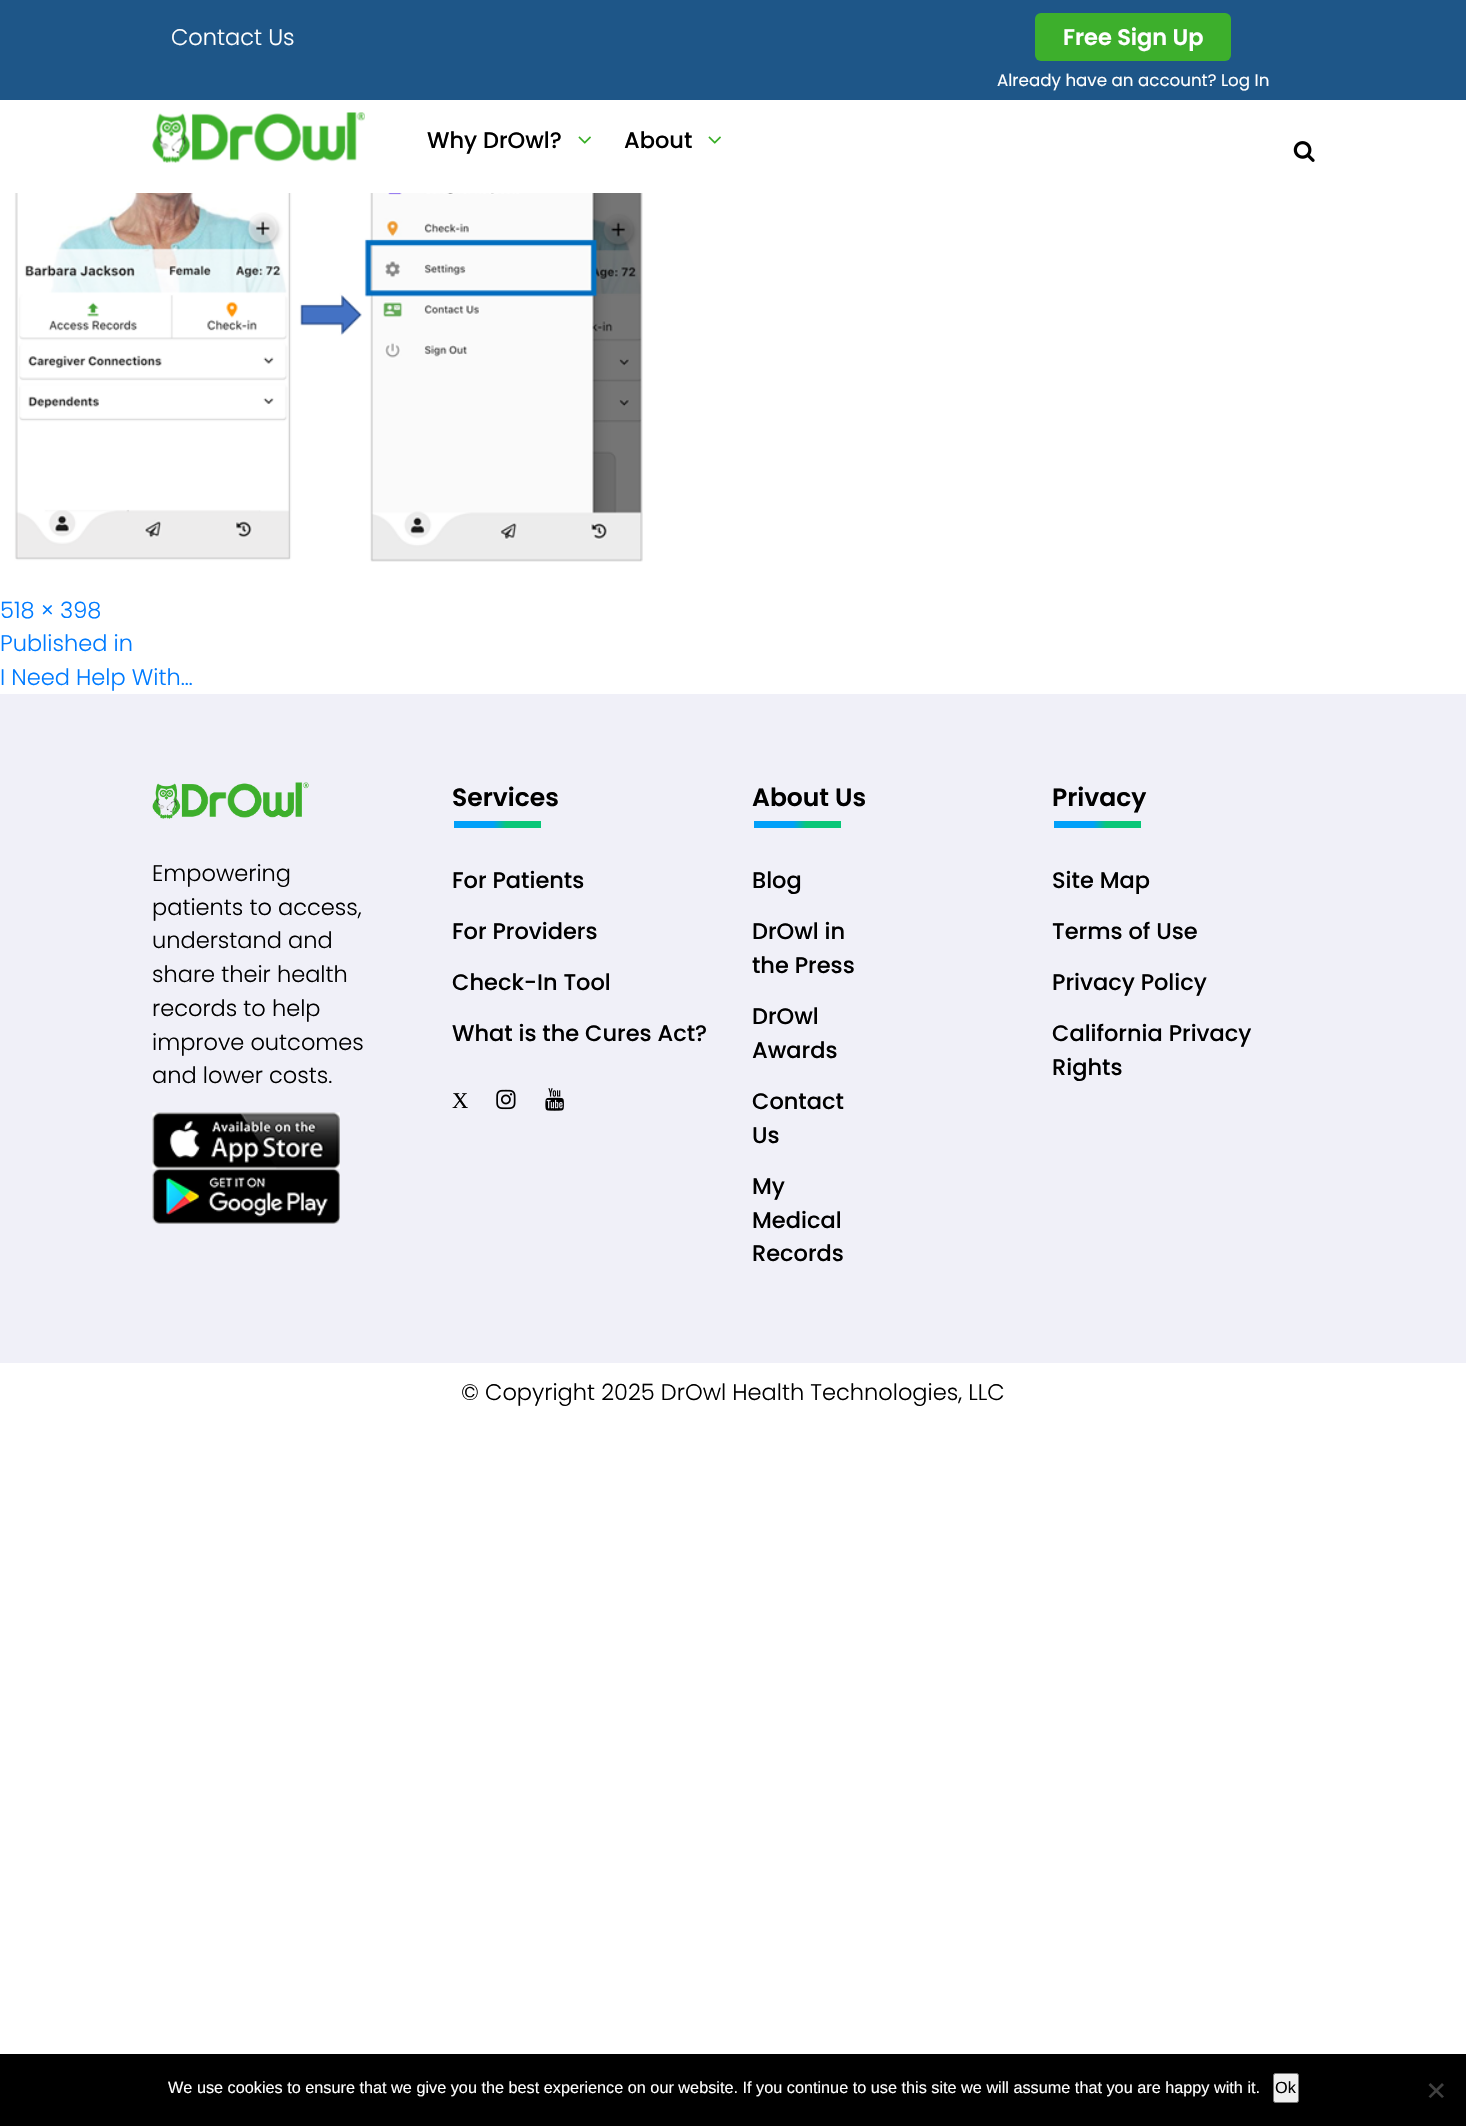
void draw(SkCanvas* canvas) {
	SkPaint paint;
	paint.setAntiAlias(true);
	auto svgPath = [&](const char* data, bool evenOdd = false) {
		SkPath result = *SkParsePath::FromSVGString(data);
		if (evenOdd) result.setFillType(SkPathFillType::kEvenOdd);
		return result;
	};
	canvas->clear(0xffffffff);
	paint.setColor(0xff1e5688);
	canvas->drawRect(SkRect::MakeXYWH(0, 0, 1466, 100), paint);
	SkFont f1(fontMgr->matchFamilyStyle("Poppins", SkFontStyle(300, SkFontStyle::kNormal_Width, SkFontStyle::kUpright_Slant)), 22.5);
	f1.setSubpixel(true);
	paint.setColor(0xffffffff);
	canvas->drawString("Contact Us", 171, 45, f1, paint);
	paint.setColor(0xff3daf2c);
	canvas->drawRoundRect(SkRect::MakeXYWH(1035, 13, 196, 48), 6, 6, paint);
	SkFont f2(fontMgr->matchFamilyStyle("Poppins", SkFontStyle(600, SkFontStyle::kNormal_Width, SkFontStyle::kUpright_Slant)), 22.5);
	f2.setSubpixel(true);
	paint.setColor(0xffffffff);
	canvas->drawString("Free Sign Up", 1063, 45, f2, paint);
	SkFont f3(fontMgr->matchFamilyStyle("Poppins", SkFontStyle::Normal()), 16.7);
	f3.setSubpixel(true);
	canvas->drawString("Already have an account? Log In", 997, 86, f3, paint);
	canvas->drawImageRect(SkImages::DeferredFromEncodedData(SkData::MakeFromFileName("img1.png")), SkRect::MakeXYWH(152, 112, 213, 51), SkSamplingOptions());
	SkFont f4(fontMgr->matchFamilyStyle("Poppins", SkFontStyle(500, SkFontStyle::kNormal_Width, SkFontStyle::kUpright_Slant)), 22.5);
	f4.setSubpixel(true);
	paint.setColor(0xff000000);
	canvas->drawString("Why DrOwl?", 427, 148, f4, paint);
	canvas->drawImageRect(SkImages::DeferredFromEncodedData(SkData::MakeFromFileName("img2.png")), SkRect::MakeXYWH(578, 136, 13, 8), SkSamplingOptions());
	canvas->drawString("About", 624, 148, f4, paint);
	canvas->drawImageRect(SkImages::DeferredFromEncodedData(SkData::MakeFromFileName("img2.png")), SkRect::MakeXYWH(708, 136, 13, 8), SkSamplingOptions());
	canvas->drawImageRect(SkImages::DeferredFromEncodedData(SkData::MakeFromFileName("img3.png")), SkRect::MakeXYWH(1293, 141, 22, 21), SkSamplingOptions());
	canvas->drawImageRect(SkImages::DeferredFromEncodedData(SkData::MakeFromFileName("img4.png")), SkRect::MakeXYWH(6, 193, 637, 369), SkSamplingOptions());
	paint.setColor(0xff007bff);
	canvas->drawString("518 × 398", 0, 618, f1, paint);
	canvas->drawString("Published in", 0, 651, f1, paint);
	canvas->drawString("I Need Help With…", 0, 685, f1, paint);
	paint.setColor(0xfff0f0f8);
	canvas->drawRect(SkRect::MakeXYWH(0, 694, 1466, 669), paint);
	canvas->drawImageRect(SkImages::DeferredFromEncodedData(SkData::MakeFromFileName("img5.png")), SkRect::MakeXYWH(152, 782, 157, 37), SkSamplingOptions());
	paint.setColor(0xff000000);
	canvas->drawString("Empowering", 152, 881, f1, paint);
	canvas->drawString("patients to access,", 152, 915, f1, paint);
	canvas->drawString("understand and", 152, 948, f1, paint);
	canvas->drawString("share their health", 152, 982, f1, paint);
	canvas->drawString("records to help", 152, 1016, f1, paint);
	canvas->drawString("improve outcomes", 152, 1050, f1, paint);
	canvas->drawString("and lower costs.", 152, 1083, f1, paint);
	canvas->drawImageRect(SkImages::DeferredFromEncodedData(SkData::MakeFromFileName("img6.png")), SkRect::MakeXYWH(152, 1112, 188, 57), SkSamplingOptions());
	canvas->drawImageRect(SkImages::DeferredFromEncodedData(SkData::MakeFromFileName("img7.png")), SkRect::MakeXYWH(152, 1168, 188, 56), SkSamplingOptions());
	SkFont f5(fontMgr->matchFamilyStyle("Poppins", SkFontStyle(600, SkFontStyle::kNormal_Width, SkFontStyle::kUpright_Slant)), 25);
	f5.setSubpixel(true);
	canvas->drawString("Services", 452, 806, f5, paint);
	{
		const SkColor colors[] = {0xff01a0f9, 0xff09c778};
		const float stops[] = {0.45, 0.6};
		const SkPoint ends[] = {{454, 824}, {541, 824}};
		paint.setShader(SkGradientShader::MakeLinear(ends, colors, stops, 2, SkTileMode::kClamp));
		paint.setAlpha(255);
	}
	canvas->drawRect(SkRect::MakeXYWH(454, 821, 87, 7), paint);
	paint.setShader(nullptr);
	paint.setColor(0xff000000);
	canvas->drawString("For Patients", 452, 888, f4, paint);
	canvas->drawString("For Providers", 452, 939, f4, paint);
	canvas->drawString("Check-In Tool", 452, 990, f4, paint);
	canvas->drawString("What is the Cures Act?", 452, 1041, f4, paint);
	SkFont f6(fontMgr->matchFamilyStyle("Liberation Serif", SkFontStyle::Normal()), 22.5);
	f6.setSubpixel(true);
	canvas->drawString("X", 452, 1108, f6, paint);
	canvas->drawImageRect(SkImages::DeferredFromEncodedData(SkData::MakeFromFileName("img8.png")), SkRect::MakeXYWH(496, 1089, 20, 21), SkSamplingOptions());
	canvas->drawImageRect(SkImages::DeferredFromEncodedData(SkData::MakeFromFileName("img9.png")), SkRect::MakeXYWH(545, 1088, 19, 23), SkSamplingOptions());
	canvas->drawString("About Us", 752, 806, f5, paint);
	{
		const SkColor colors[] = {0xff01a0f9, 0xff09c778};
		const float stops[] = {0.45, 0.6};
		const SkPoint ends[] = {{754, 824}, {841, 824}};
		paint.setShader(SkGradientShader::MakeLinear(ends, colors, stops, 2, SkTileMode::kClamp));
		paint.setAlpha(255);
	}
	canvas->drawRect(SkRect::MakeXYWH(754, 821, 87, 7), paint);
	paint.setShader(nullptr);
	paint.setColor(0xff000000);
	canvas->drawString("Blog", 752, 888, f4, paint);
	canvas->drawString("DrOwl in", 752, 939, f4, paint);
	canvas->drawString("the Press", 752, 973, f4, paint);
	canvas->drawString("DrOwl", 752, 1024, f4, paint);
	canvas->drawString("Awards", 752, 1058, f4, paint);
	canvas->drawString("Contact", 752, 1109, f4, paint);
	canvas->drawString("Us", 752, 1143, f4, paint);
	canvas->drawString("My", 752, 1194, f4, paint);
	canvas->drawString("Medical", 752, 1228, f4, paint);
	canvas->drawString("Records", 752, 1261, f4, paint);
	canvas->drawString("Privacy", 1052, 806, f5, paint);
	{
		const SkColor colors[] = {0xff01a0f9, 0xff09c778};
		const float stops[] = {0.45, 0.6};
		const SkPoint ends[] = {{1054, 824}, {1141, 824}};
		paint.setShader(SkGradientShader::MakeLinear(ends, colors, stops, 2, SkTileMode::kClamp));
		paint.setAlpha(255);
	}
	canvas->drawRect(SkRect::MakeXYWH(1054, 821, 87, 7), paint);
	paint.setShader(nullptr);
	paint.setColor(0xff000000);
	canvas->drawString("Site Map", 1052, 888, f4, paint);
	canvas->drawString("Terms of Use", 1052, 939, f4, paint);
	canvas->drawString("Privacy Policy", 1052, 990, f4, paint);
	canvas->drawString("California Privacy", 1052, 1041, f4, paint);
	canvas->drawString("Rights", 1052, 1075, f4, paint);
	canvas->drawString("© Copyright 2025 DrOwl Health Technologies, LLC", 461, 1400, f1, paint);
	canvas->drawRect(SkRect::MakeXYWH(0, 2054, 1466, 72), paint);
	SkFont f7(fontMgr->matchFamilyStyle("Liberation Sans", SkFontStyle::Normal()), 16.25);
	f7.setSubpixel(true);
	paint.setColor(0xffffffff);
	canvas->drawString("We use cookies to ensure that we give you the best experience on our website. If you continue to use this site we will assume that you are happy with it.", 168, 2093, f7, paint);
	paint.setColor(0xffefefef);
	canvas->drawRoundRect(SkRect::MakeXYWH(1273.5, 2073.5, 25, 29), 2, 2, paint);
	paint.setStroke(true);
	paint.setStrokeWidth(1);
	paint.setColor(0xff767676);
	canvas->drawRoundRect(SkRect::MakeXYWH(1273.5, 2073.5, 25, 29), 2, 2, paint);
	paint.setStroke(false);
	paint.setColor(0xff000000);
	canvas->drawString("Ok", 1275, 2093, f7, paint);
	paint.setColor(0xff404040);
	canvas->drawPath(svgPath("M1442 2083L1444 2085L1430.5 2098L1428.5 2096.5Z"), paint);
	canvas->drawPath(svgPath("M1428.5 2085L1430.5 2083L1444 2096.5L1442 2098Z"), paint);
}
